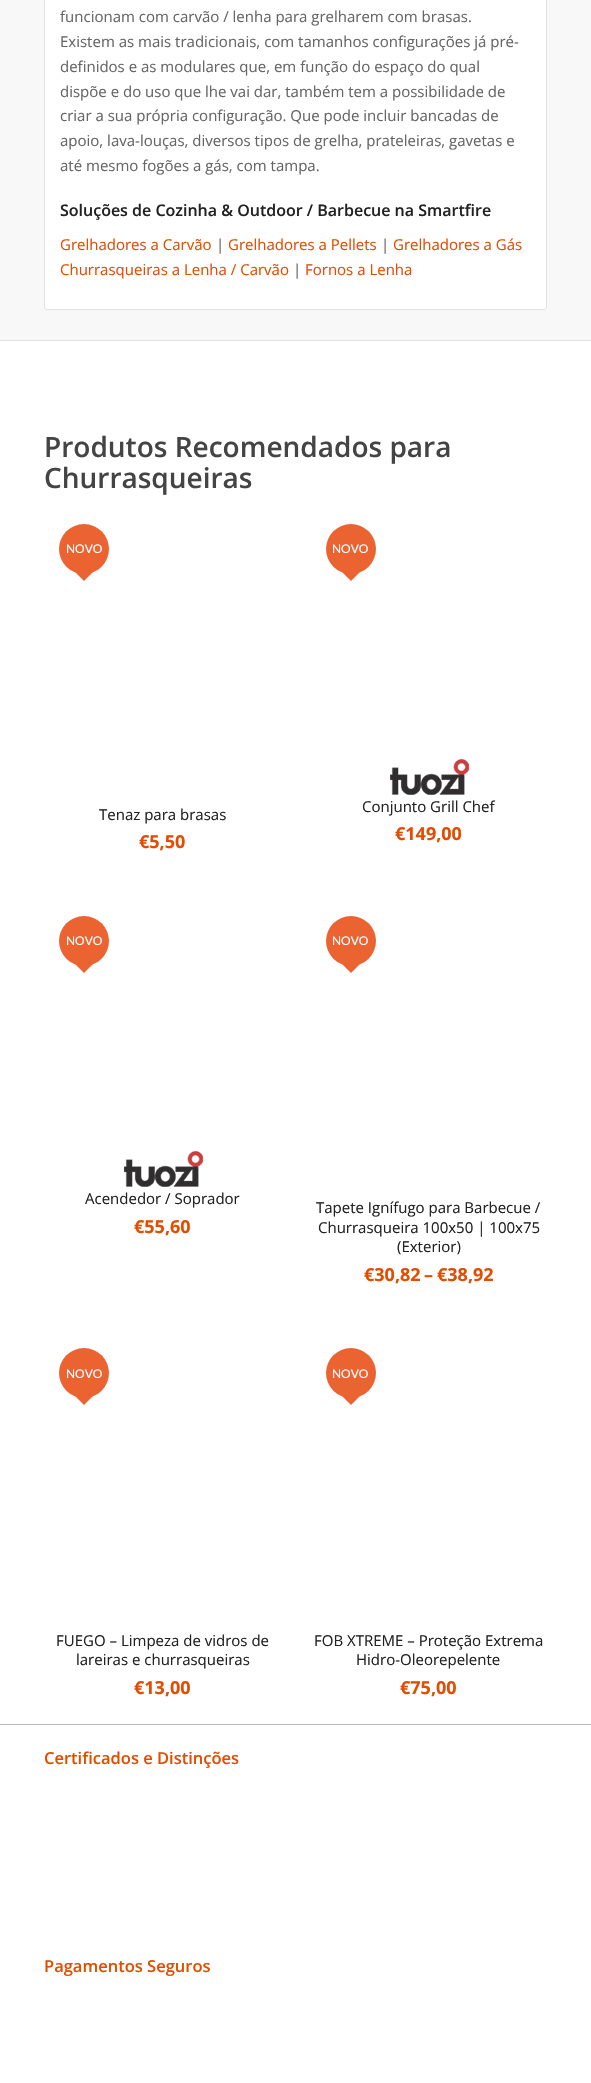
void draw(SkCanvas* canvas) {
	SkPaint paint;
	paint.setAntiAlias(true);
	auto svgPath = [&](const char* data, bool evenOdd = false) {
		SkPath result = *SkParsePath::FromSVGString(data);
		if (evenOdd) result.setFillType(SkPathFillType::kEvenOdd);
		return result;
	};
	canvas->clear(0xffffffff);
	paint.setColor(0xfff8f8f8);
	canvas->drawRect(SkRect::MakeXYWH(0, 0, 591, 340), paint);
	paint.setColor(0xffffffff);
	canvas->drawPath(svgPath("M44.5-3.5H546.5V307C546.5 308.5 545.5 309.5 544 309.5H47C45.5 309.5 44.5 308.5 44.5 307Z"), paint);
	paint.setStroke(true);
	paint.setStrokeWidth(1);
	paint.setColor(0xffe1e1e1);
	canvas->drawPath(svgPath("M44.5-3.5H546.5V307C546.5 308.5 545.5 309.5 544 309.5H47C45.5 309.5 44.5 308.5 44.5 307Z"), paint);
	SkFont f1(fontMgr->matchFamilyStyle("Open Sans", SkFontStyle::Normal()), 15);
	f1.setSubpixel(true);
	paint.setStroke(false);
	paint.setColor(0xff666666);
	canvas->drawString("funcionam com carvão / lenha para grelharem com brasas.", 60, 22, f1, paint);
	canvas->drawString("Existem as mais tradicionais, com tamanhos configurações já pré-", 60, 47, f1, paint);
	canvas->drawString("definidos e as modulares que, em função do espaço do qual", 60, 72, f1, paint);
	canvas->drawString("dispõe e do uso que lhe vai dar, também tem a possibilidade de", 60, 97, f1, paint);
	canvas->drawString("criar a sua própria configuração. Que pode incluir bancadas de", 60, 121, f1, paint);
	canvas->drawString("apoio, lava-louças, diversos tipos de grelha, prateleiras, gavetas e", 60, 146, f1, paint);
	canvas->drawString("até mesmo fogões a gás, com tampa.", 60, 171, f1, paint);
	SkFont f2(fontMgr->matchFamilyStyle("Open Sans", SkFontStyle(600, SkFontStyle::kNormal_Width, SkFontStyle::kUpright_Slant)), 16);
	f2.setSubpixel(true);
	paint.setColor(0xff222222);
	canvas->drawString("Soluções de Cozinha & Outdoor / Barbecue na Smartfire", 60, 216, f2, paint);
	paint.setColor(0xffe24d02);
	canvas->drawString("Grelhadores a Carvão", 60, 250, f1, paint);
	paint.setColor(0xff666666);
	canvas->drawString("|", 216, 250, f1, paint);
	paint.setColor(0xffe24d02);
	canvas->drawString("Grelhadores a Pellets", 228, 250, f1, paint);
	paint.setColor(0xff666666);
	canvas->drawString("|", 381, 250, f1, paint);
	paint.setColor(0xffe24d02);
	canvas->drawString("Grelhadores a Gás", 393, 250, f1, paint);
	canvas->drawString("Churrasqueiras a Lenha / Carvão", 60, 275, f1, paint);
	paint.setColor(0xff666666);
	canvas->drawString("|", 293, 275, f1, paint);
	paint.setColor(0xffe24d02);
	canvas->drawString("Fornos a Lenha", 305, 275, f1, paint);
	paint.setColor(0xffe1e1e1);
	canvas->drawRect(SkRect::MakeXYWH(0, 340, 591, 1), paint);
	SkFont f3(fontMgr->matchFamilyStyle("Open Sans", SkFontStyle(600, SkFontStyle::kNormal_Width, SkFontStyle::kUpright_Slant)), 28);
	f3.setSubpixel(true);
	paint.setColor(0xff444444);
	canvas->drawString("Produtos Recomendados para", 44, 457, f3, paint);
	canvas->drawString("Churrasqueiras", 44, 488, f3, paint);
	paint.setColor(0xffea6331);
	canvas->drawCircle(84, 549, 25, paint);
	SkFont f4(fontMgr->matchFamilyStyle("Lato", SkFontStyle::Normal()), 12);
	f4.setSubpixel(true);
	paint.setColor(0xffffffff);
	canvas->drawString("NOVO", 66, 553, f4, paint);
	paint.setColor(0xffea6331);
	canvas->drawPath(svgPath("M75 572H93L84 581Z"), paint);
	paint.setColor(0xff222222);
	canvas->drawString("Tenaz para brasas", 99, 820, f1, paint);
	SkFont f5(fontMgr->matchFamilyStyle("Open Sans", SkFontStyle::Bold()), 18);
	f5.setSubpixel(true);
	paint.setColor(0xffe24d02);
	canvas->drawString("€5,50", 139, 848, f5, paint);
	paint.setColor(0xffea6331);
	canvas->drawCircle(351, 549, 25, paint);
	paint.setColor(0xffffffff);
	canvas->drawString("NOVO", 332, 553, f4, paint);
	paint.setColor(0xffea6331);
	canvas->drawPath(svgPath("M342 572H360L351 581Z"), paint);
	canvas->drawImageRect(SkImages::DeferredFromEncodedData(SkData::MakeFromFileName("img1.png")), SkRect::MakeXYWH(390, 759, 79, 36), SkSamplingOptions());
	paint.setColor(0xff222222);
	canvas->drawString("Conjunto Grill Chef", 362, 812, f1, paint);
	paint.setColor(0xffe24d02);
	canvas->drawString("€149,00", 395, 840, f5, paint);
	paint.setColor(0xffea6331);
	canvas->drawCircle(84, 941, 25, paint);
	paint.setColor(0xffffffff);
	canvas->drawString("NOVO", 66, 945, f4, paint);
	paint.setColor(0xffea6331);
	canvas->drawPath(svgPath("M75 964H93L84 973Z"), paint);
	canvas->drawImageRect(SkImages::DeferredFromEncodedData(SkData::MakeFromFileName("img1.png")), SkRect::MakeXYWH(124, 1151, 79, 36), SkSamplingOptions());
	paint.setColor(0xff222222);
	canvas->drawString("Acendedor / Soprador", 85, 1204, f1, paint);
	paint.setColor(0xffe24d02);
	canvas->drawString("€55,60", 134, 1233, f5, paint);
	paint.setColor(0xffea6331);
	canvas->drawCircle(351, 941, 25, paint);
	paint.setColor(0xffffffff);
	canvas->drawString("NOVO", 332, 945, f4, paint);
	paint.setColor(0xffea6331);
	canvas->drawPath(svgPath("M342 964H360L351 973Z"), paint);
	paint.setColor(0xff222222);
	canvas->drawString("Tapete Ignífugo para Barbecue /", 316, 1213, f1, paint);
	canvas->drawString("Churrasqueira 100x50 | 100x75", 318, 1233, f1, paint);
	canvas->drawString("(Exterior)", 397, 1252, f1, paint);
	paint.setColor(0xffe24d02);
	canvas->drawString("€30,82", 364, 1281, f5, paint);
	canvas->drawString("–", 424, 1281, f5, paint);
	canvas->drawString("€38,92", 437, 1281, f5, paint);
	paint.setColor(0xffea6331);
	canvas->drawCircle(84, 1373, 25, paint);
	paint.setColor(0xffffffff);
	canvas->drawString("NOVO", 66, 1378, f4, paint);
	paint.setColor(0xffea6331);
	canvas->drawPath(svgPath("M75 1396H93L84 1405Z"), paint);
	paint.setColor(0xff222222);
	canvas->drawString("FUEGO – Limpeza de vidros de", 56, 1646, f1, paint);
	canvas->drawString("lareiras e churrasqueiras", 76, 1665, f1, paint);
	paint.setColor(0xffe24d02);
	canvas->drawString("€13,00", 134, 1694, f5, paint);
	paint.setColor(0xffea6331);
	canvas->drawCircle(351, 1373, 25, paint);
	paint.setColor(0xffffffff);
	canvas->drawString("NOVO", 332, 1378, f4, paint);
	paint.setColor(0xffea6331);
	canvas->drawPath(svgPath("M342 1396H360L351 1405Z"), paint);
	paint.setColor(0xff222222);
	canvas->drawString("FOB XTREME – Proteção Extrema", 314, 1646, f1, paint);
	canvas->drawString("Hidro-Oleorepelente", 356, 1665, f1, paint);
	paint.setColor(0xffe24d02);
	canvas->drawString("€75,00", 400, 1694, f5, paint);
	paint.setColor(0xffbababa);
	canvas->drawRect(SkRect::MakeXYWH(0, 1724, 591, 1), paint);
	SkFont f6(fontMgr->matchFamilyStyle("Open Sans", SkFontStyle(600, SkFontStyle::kNormal_Width, SkFontStyle::kUpright_Slant)), 16.5);
	f6.setSubpixel(true);
	paint.setColor(0xffe24d02);
	canvas->drawString("Certificados e Distinções", 44, 1764, f6, paint);
	canvas->drawString("Pagamentos Seguros", 44, 1972, f6, paint);
}
